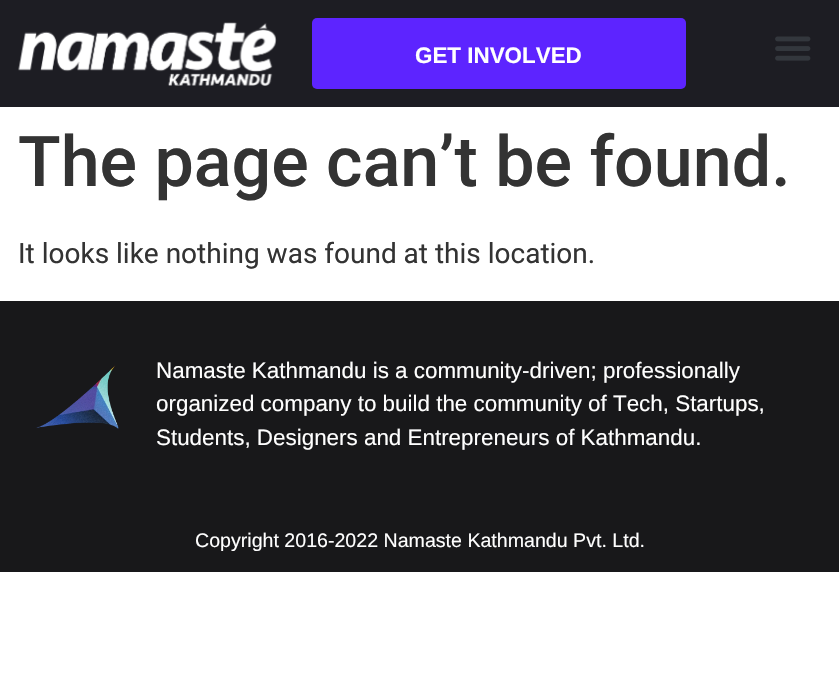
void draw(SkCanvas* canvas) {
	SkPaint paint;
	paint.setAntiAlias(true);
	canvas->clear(0xffffffff);
	paint.setColor(0xff1d1d23);
	canvas->drawRect(SkRect::MakeXYWH(0, 0, 839, 107), paint);
	canvas->drawImageRect(SkImages::DeferredFromEncodedData(SkData::MakeFromFileName("img1.png")), SkRect::MakeXYWH(18, 22, 259, 64), SkSamplingOptions());
	paint.setColor(0xff5d24ff);
	canvas->drawRoundRect(SkRect::MakeXYWH(312, 18, 374, 71), 5, 5, paint);
	SkFont f1(fontMgr->matchFamilyStyle("Liberation Sans", SkFontStyle::Bold()), 22.4);
	f1.setSubpixel(true);
	paint.setColor(0xffffffff);
	canvas->drawString("GET INVOLVED", 415, 63, f1, paint);
	canvas->drawImageRect(SkImages::DeferredFromEncodedData(SkData::MakeFromFileName("img2.png")), SkRect::MakeXYWH(775, 36, 36, 25), SkSamplingOptions());
	SkFont f2(fontMgr->matchFamilyStyle("Roboto", SkFontStyle(500, SkFontStyle::kNormal_Width, SkFontStyle::kUpright_Slant)), 70);
	f2.setSubpixel(true);
	paint.setColor(0xff333333);
	canvas->drawString("The page can’t be found.", 18, 186, f2, paint);
	SkFont f3(fontMgr->matchFamilyStyle("Roboto", SkFontStyle::Normal()), 28);
	f3.setSubpixel(true);
	canvas->drawString("It looks like nothing was found at this location.", 18, 263, f3, paint);
	paint.setColor(0xff18181a);
	canvas->drawRect(SkRect::MakeXYWH(0, 301, 839, 271), paint);
	canvas->drawImageRect(SkImages::DeferredFromEncodedData(SkData::MakeFromFileName("img3.png")), SkRect::MakeXYWH(36, 365, 83, 64), SkSamplingOptions());
	SkFont f4(fontMgr->matchFamilyStyle("Liberation Sans", SkFontStyle::Normal()), 22.4);
	f4.setSubpixel(true);
	paint.setColor(0xffffffff);
	canvas->drawString("Namaste Kathmandu is a community-driven; professionally", 156, 378, f4, paint);
	canvas->drawString("organized company to build the community of Tech, Startups,", 156, 411, f4, paint);
	canvas->drawString("Students, Designers and Entrepreneurs of Kathmandu.", 156, 445, f4, paint);
	SkFont f5(fontMgr->matchFamilyStyle("Liberation Sans", SkFontStyle::Normal()), 19.6);
	f5.setSubpixel(true);
	canvas->drawString("Copyright 2016-2022 Namaste Kathmandu Pvt. Ltd.", 195, 547, f5, paint);
}
